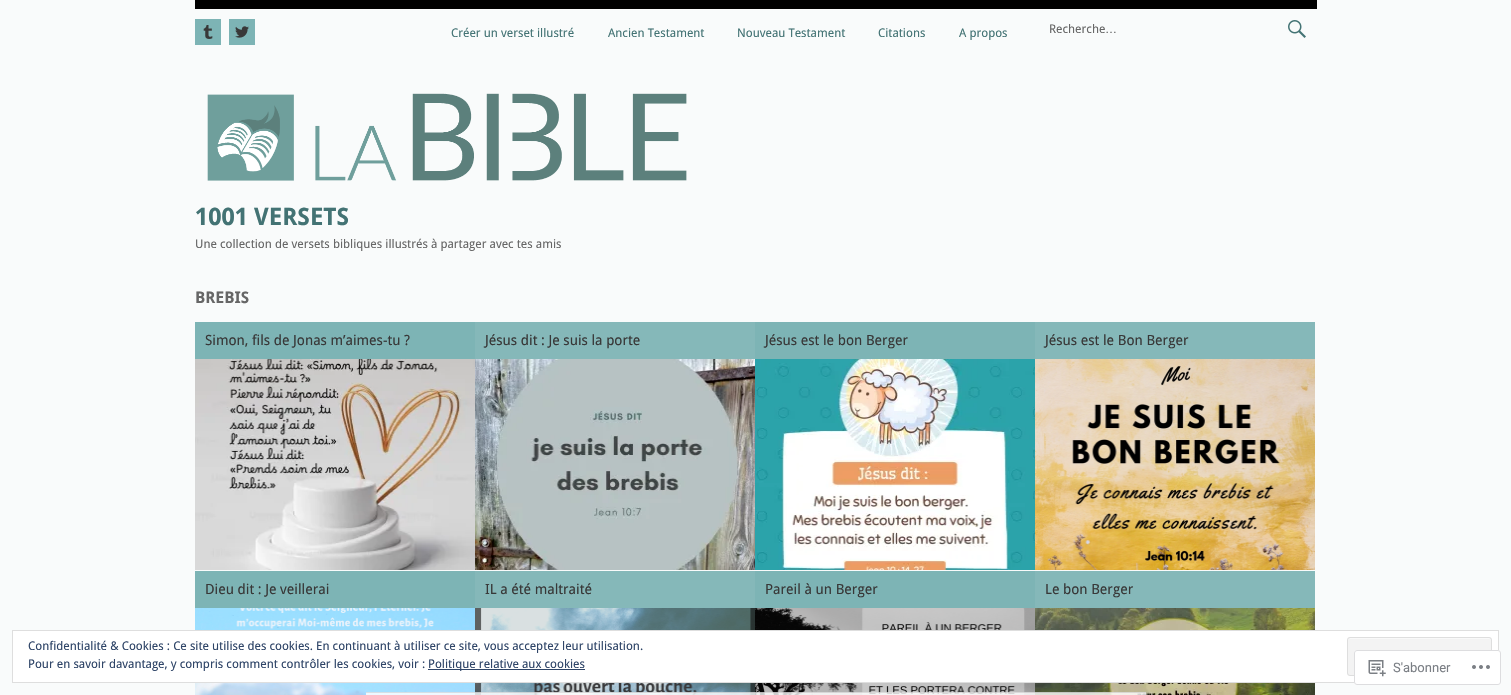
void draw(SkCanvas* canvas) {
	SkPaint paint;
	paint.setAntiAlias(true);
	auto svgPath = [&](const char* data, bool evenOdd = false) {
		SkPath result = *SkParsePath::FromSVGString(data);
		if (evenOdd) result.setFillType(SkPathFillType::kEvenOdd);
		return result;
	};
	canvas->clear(0xfff9fbfb);
	paint.setColor(0xff000000);
	canvas->drawRect(SkRect::MakeXYWH(195, 0, 1122, 9), paint);
	paint.setColor(0xff7db4b5);
	canvas->drawRect(SkRect::MakeXYWH(195, 19, 26, 26), paint);
	canvas->drawImageRect(SkImages::DeferredFromEncodedData(SkData::MakeFromFileName("img1.png")), SkRect::MakeXYWH(203, 25, 10, 14), SkSamplingOptions());
	canvas->drawRect(SkRect::MakeXYWH(229, 19, 26, 26), paint);
	canvas->drawImageRect(SkImages::DeferredFromEncodedData(SkData::MakeFromFileName("img2.png")), SkRect::MakeXYWH(235, 26, 14, 12), SkSamplingOptions());
	SkFont f1(fontMgr->matchFamilyStyle("Droid Sans", SkFontStyle::Normal()), 12);
	f1.setSubpixel(true);
	paint.setColor(0xff437374);
	canvas->drawString("Créer un verset illustré", 451, 37, f1, paint);
	canvas->drawString("Ancien Testament", 608, 37, f1, paint);
	canvas->drawString("Nouveau Testament", 737, 37, f1, paint);
	canvas->drawString("Citations", 878, 37, f1, paint);
	canvas->drawString("A propos", 959, 37, f1, paint);
	paint.setColor(0xff666666);
	canvas->drawString("Recherche", 1049, 33, f1, paint);
	SkFont f2(fontMgr->matchFamilyStyle("Liberation Sans", SkFontStyle::Normal()), 12);
	f2.setSubpixel(true);
	canvas->drawString("…", 1105, 33, f2, paint);
	canvas->drawImageRect(SkImages::DeferredFromEncodedData(SkData::MakeFromFileName("img3.png")), SkRect::MakeXYWH(1288, 20, 18, 18), SkSamplingOptions());
	canvas->drawImageRect(SkImages::DeferredFromEncodedData(SkData::MakeFromFileName("img4.png")), SkRect::MakeXYWH(207, 93, 480, 88), SkSamplingOptions());
	SkFont f3(fontMgr->matchFamilyStyle("Droid Sans", SkFontStyle::Bold()), 24);
	f3.setSubpixel(true);
	paint.setColor(0xff437374);
	canvas->drawString("1001 VERSETS", 195, 225, f3, paint);
	paint.setColor(0xff666666);
	canvas->drawString("Une collection de versets bibliques illustrés à partager avec tes amis", 195, 248, f1, paint);
	SkFont f4(fontMgr->matchFamilyStyle("Droid Sans", SkFontStyle::Bold()), 16);
	f4.setSubpixel(true);
	canvas->drawString("BREBIS", 195, 303, f4, paint);
	paint.setColor(0xff7db4b5);
	canvas->drawRect(SkRect::MakeXYWH(195, 322, 280, 37), paint);
	SkFont f5(fontMgr->matchFamilyStyle("Droid Sans", SkFontStyle::Normal()), 14);
	f5.setSubpixel(true);
	paint.setColor(0xff383838);
	canvas->drawString("Simon, fils de Jonas m’aimes-tu ?", 205, 345, f5, paint);
	canvas->drawImageRect(SkImages::DeferredFromEncodedData(SkData::MakeFromFileName("img5.png")), SkRect::MakeXYWH(195, 359, 280, 211), SkSamplingOptions());
	paint.setColor(0xff85b8b9);
	canvas->drawRect(SkRect::MakeXYWH(475, 322, 280, 37), paint);
	paint.setColor(0xff383838);
	canvas->drawString("Jésus dit : Je suis la porte", 485, 345, f5, paint);
	canvas->drawImageRect(SkImages::DeferredFromEncodedData(SkData::MakeFromFileName("img6.png")), SkRect::MakeXYWH(475, 359, 280, 211), SkSamplingOptions());
	paint.setColor(0xff7db4b5);
	canvas->drawRect(SkRect::MakeXYWH(755, 322, 280, 37), paint);
	paint.setColor(0xff383838);
	canvas->drawString("Jésus est le bon Berger", 765, 345, f5, paint);
	canvas->drawImageRect(SkImages::DeferredFromEncodedData(SkData::MakeFromFileName("img7.png")), SkRect::MakeXYWH(755, 359, 280, 211), SkSamplingOptions());
	paint.setColor(0xff85b8b9);
	canvas->drawRect(SkRect::MakeXYWH(1035, 322, 280, 37), paint);
	paint.setColor(0xff383838);
	canvas->drawString("Jésus est le Bon Berger", 1045, 345, f5, paint);
	canvas->drawImageRect(SkImages::DeferredFromEncodedData(SkData::MakeFromFileName("img8.png")), SkRect::MakeXYWH(1035, 359, 280, 211), SkSamplingOptions());
	paint.setColor(0xff7db4b5);
	canvas->drawRect(SkRect::MakeXYWH(195, 571, 280, 37), paint);
	paint.setColor(0xff383838);
	canvas->drawString("Dieu dit : Je veillerai", 205, 594, f5, paint);
	canvas->drawImageRect(SkImages::DeferredFromEncodedData(SkData::MakeFromFileName("img9.png")), SkRect::MakeXYWH(195, 608, 280, 87), SkSamplingOptions());
	paint.setColor(0xff85b8b9);
	canvas->drawRect(SkRect::MakeXYWH(475, 571, 280, 37), paint);
	paint.setColor(0xff383838);
	canvas->drawString("IL a été maltraité", 485, 594, f5, paint);
	canvas->drawImageRect(SkImages::DeferredFromEncodedData(SkData::MakeFromFileName("img10.png")), SkRect::MakeXYWH(475, 608, 280, 87), SkSamplingOptions());
	paint.setColor(0xff7db4b5);
	canvas->drawRect(SkRect::MakeXYWH(755, 571, 280, 37), paint);
	paint.setColor(0xff383838);
	canvas->drawString("Pareil à un Berger", 765, 594, f5, paint);
	canvas->drawImageRect(SkImages::DeferredFromEncodedData(SkData::MakeFromFileName("img11.png")), SkRect::MakeXYWH(755, 608, 280, 87), SkSamplingOptions());
	paint.setColor(0xff85b8b9);
	canvas->drawRect(SkRect::MakeXYWH(1035, 571, 280, 37), paint);
	paint.setColor(0xff383838);
	canvas->drawString("Le bon Berger", 1045, 594, f5, paint);
	canvas->drawImageRect(SkImages::DeferredFromEncodedData(SkData::MakeFromFileName("img12.png")), SkRect::MakeXYWH(1035, 608, 280, 87), SkSamplingOptions());
	paint.setColor(0xffffffff);
	canvas->drawRect(SkRect::MakeXYWH(12.5, 630.5, 1486, 52), paint);
	paint.setStroke(true);
	paint.setStrokeWidth(1);
	paint.setColor(0xffdedede);
	canvas->drawRect(SkRect::MakeXYWH(12.5, 630.5, 1486, 52), paint);
	paint.setStroke(false);
	paint.setColor(0xff2e4467);
	canvas->drawString("Confidentialité & Cookies : Ce site utilise des cookies. En continuant à utiliser ce site, vous acceptez leur utilisation.", 28, 650, f1, paint);
	paint.setColor(0xfff3f3f3);
	canvas->drawRoundRect(SkRect::MakeXYWH(1347, 637, 145, 39), 3, 3, paint);
	paint.setColor(0xfff9f9f9);
	canvas->drawPath(svgPath("M1350 639H1489C1490 639 1491 640 1491 641C1491 640 1491 639 1490 638H1350L1348 639V641C1348 640 1349 639 1350 639Z"), paint);
	paint.setStroke(true);
	paint.setColor(0xffdedede);
	canvas->drawRoundRect(SkRect::MakeXYWH(1347.5, 637.5, 144, 38), 2.5, 2.5, paint);
	paint.setStroke(false);
	paint.setColor(0xff2e4467);
	canvas->drawString("Pour en savoir davantage, y compris comment contrôler les cookies, voir :", 28, 668, f1, paint);
	canvas->drawRect(SkRect::MakeXYWH(428, 669, 157, 1), paint);
	canvas->drawString("Politique relative aux cookies", 428, 668, f1, paint);
	paint.setColor(0xfaffffff);
	canvas->drawRoundRect(SkRect::MakeXYWH(1354, 650, 147, 35), 3, 3, paint);
	paint.setStroke(true);
	paint.setColor(0xfadcdcde);
	canvas->drawRoundRect(SkRect::MakeXYWH(1354.5, 650.5, 146, 34), 2.5, 2.5, paint);
	canvas->drawImageRect(SkImages::DeferredFromEncodedData(SkData::MakeFromFileName("img13.png")), SkRect::MakeXYWH(1368, 660, 18, 17), SkSamplingOptions());
	SkFont f6(fontMgr->matchFamilyStyle("Roboto", SkFontStyle::Normal()), 13);
	f6.setSubpixel(true);
	paint.setStroke(false);
	paint.setColor(0xff7a7e84);
	canvas->drawString("S'abonner", 1393, 672, f6, paint);
	canvas->drawImageRect(SkImages::DeferredFromEncodedData(SkData::MakeFromFileName("img14.png")), SkRect::MakeXYWH(1472, 665, 18, 4), SkSamplingOptions());
	paint.setColor(0xccffffff);
	canvas->drawRect(SkRect::MakeXYWH(366, 692, 780, 3), paint);
	paint.setColor(0x1a000000);
	canvas->drawRect(SkRect::MakeXYWH(366, 692, 780, 1), paint);
}
